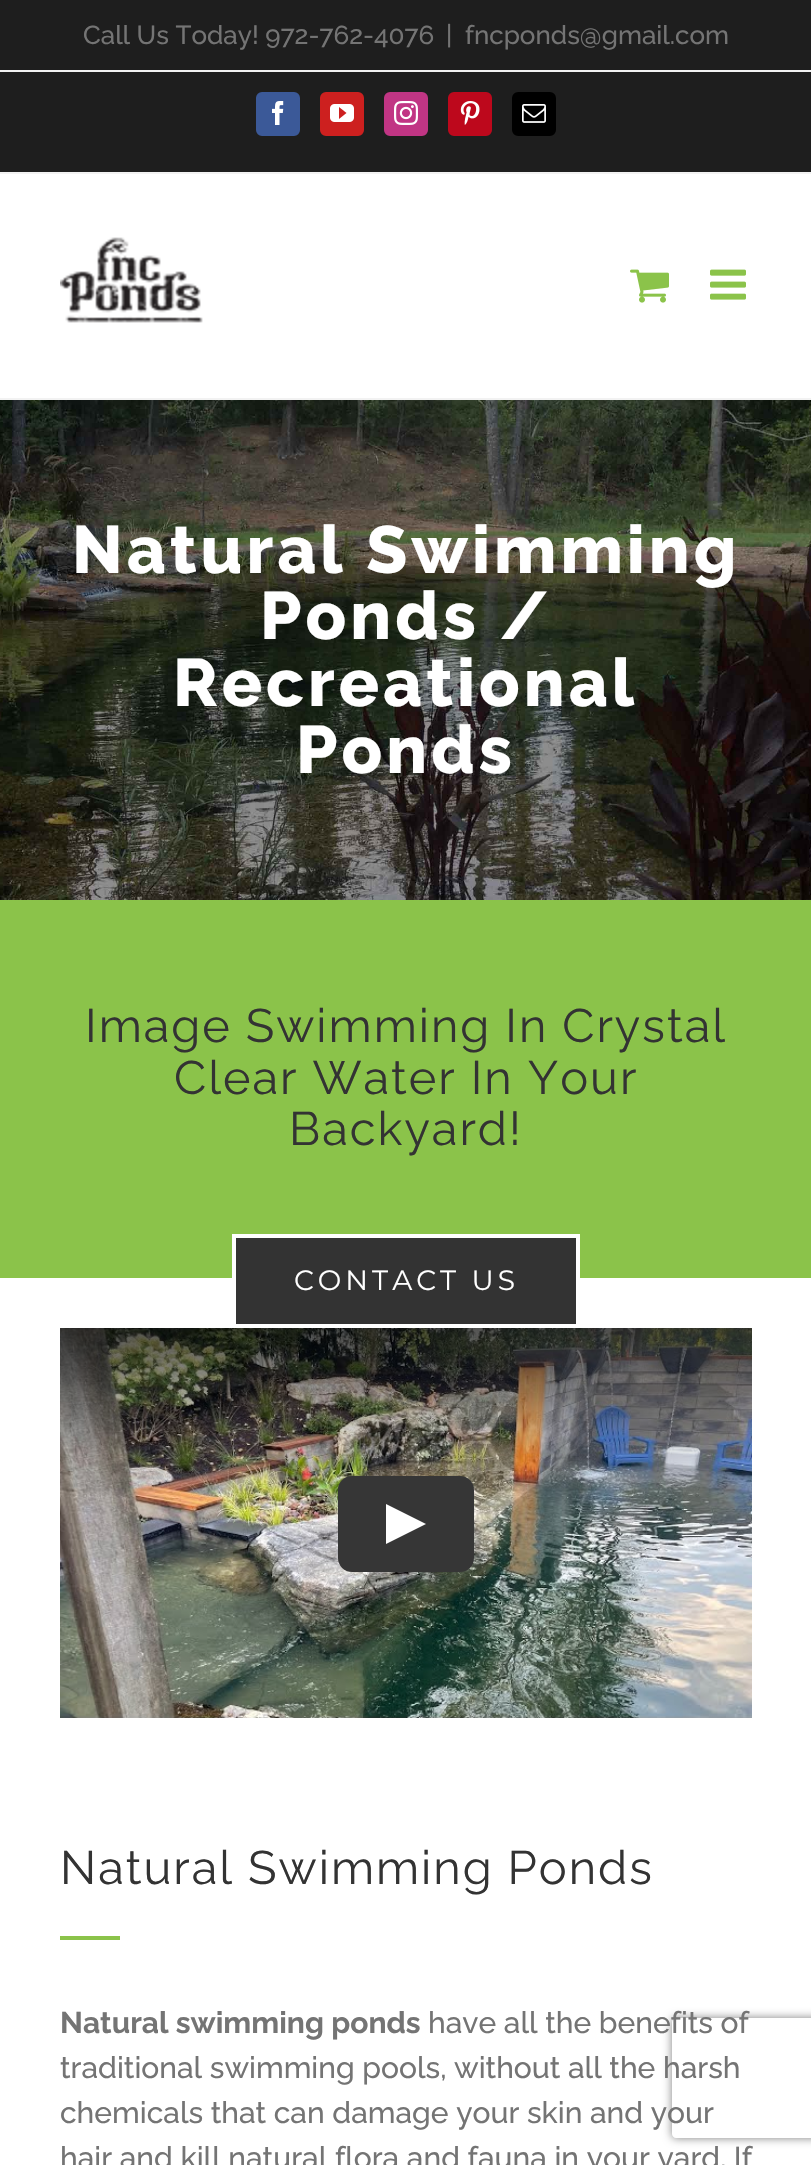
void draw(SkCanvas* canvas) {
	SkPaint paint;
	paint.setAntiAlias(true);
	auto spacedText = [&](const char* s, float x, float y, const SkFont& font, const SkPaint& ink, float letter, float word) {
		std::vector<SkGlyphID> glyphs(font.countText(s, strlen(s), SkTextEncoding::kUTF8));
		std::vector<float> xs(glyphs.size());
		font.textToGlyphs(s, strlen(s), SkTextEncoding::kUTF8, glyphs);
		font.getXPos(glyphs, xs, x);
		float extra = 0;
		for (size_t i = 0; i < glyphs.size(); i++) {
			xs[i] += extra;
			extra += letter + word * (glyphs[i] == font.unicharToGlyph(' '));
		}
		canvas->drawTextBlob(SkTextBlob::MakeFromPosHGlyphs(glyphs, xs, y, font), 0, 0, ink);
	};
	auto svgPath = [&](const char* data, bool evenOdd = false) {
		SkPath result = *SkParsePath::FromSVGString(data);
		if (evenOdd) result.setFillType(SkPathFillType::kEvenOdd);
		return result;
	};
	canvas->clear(0xffffffff);
	paint.setColor(0xff1e1e1e);
	canvas->drawRect(SkRect::MakeXYWH(0, 0, 811, 172), paint);
	paint.setColor(0xfff2f2f2);
	canvas->drawRect(SkRect::MakeXYWH(0, 172, 811, 2), paint);
	canvas->drawRect(SkRect::MakeXYWH(0, 70, 811, 2), paint);
	SkFont f1(fontMgr->matchFamilyStyle("Raleway", SkFontStyle(500, SkFontStyle::kNormal_Width, SkFontStyle::kUpright_Slant)), 26);
	f1.setSubpixel(true);
	paint.setColor(0xff747474);
	canvas->drawString("Call Us Today! 972-762-4076", 83, 44, f1, paint);
	canvas->drawString("|", 446, 44, f1, paint);
	canvas->drawString("fncponds@gmail.com", 465, 44, f1, paint);
	paint.setColor(0xff3b5998);
	canvas->drawRoundRect(SkRect::MakeXYWH(257, 93, 42, 42), 5, 5, paint);
	paint.setStroke(true);
	paint.setStrokeWidth(2);
	canvas->drawRoundRect(SkRect::MakeXYWH(257, 93, 42, 42), 5, 5, paint);
	canvas->drawImageRect(SkImages::DeferredFromEncodedData(SkData::MakeFromFileName("img1.png")), SkRect::MakeXYWH(272, 101, 12, 24), SkSamplingOptions());
	paint.setStroke(false);
	paint.setColor(0xffcd201f);
	canvas->drawRoundRect(SkRect::MakeXYWH(321, 93, 42, 42), 5, 5, paint);
	paint.setStroke(true);
	canvas->drawRoundRect(SkRect::MakeXYWH(321, 93, 42, 42), 5, 5, paint);
	canvas->drawImageRect(SkImages::DeferredFromEncodedData(SkData::MakeFromFileName("img2.png")), SkRect::MakeXYWH(330, 104, 24, 18), SkSamplingOptions());
	paint.setStroke(false);
	paint.setColor(0xffc13584);
	canvas->drawRoundRect(SkRect::MakeXYWH(385, 93, 42, 42), 5, 5, paint);
	paint.setStroke(true);
	canvas->drawRoundRect(SkRect::MakeXYWH(385, 93, 42, 42), 5, 5, paint);
	canvas->drawImageRect(SkImages::DeferredFromEncodedData(SkData::MakeFromFileName("img3.png")), SkRect::MakeXYWH(394, 101, 24, 24), SkSamplingOptions());
	paint.setStroke(false);
	paint.setColor(0xffbd081c);
	canvas->drawRoundRect(SkRect::MakeXYWH(449, 93, 42, 42), 5, 5, paint);
	paint.setStroke(true);
	canvas->drawRoundRect(SkRect::MakeXYWH(449, 93, 42, 42), 5, 5, paint);
	canvas->drawImageRect(SkImages::DeferredFromEncodedData(SkData::MakeFromFileName("img4.png")), SkRect::MakeXYWH(460, 101, 20, 24), SkSamplingOptions());
	paint.setStroke(false);
	paint.setColor(0xff000000);
	canvas->drawRoundRect(SkRect::MakeXYWH(513, 93, 42, 42), 5, 5, paint);
	paint.setStroke(true);
	canvas->drawRoundRect(SkRect::MakeXYWH(513, 93, 42, 42), 5, 5, paint);
	canvas->drawImageRect(SkImages::DeferredFromEncodedData(SkData::MakeFromFileName("img5.png")), SkRect::MakeXYWH(522, 104, 24, 19), SkSamplingOptions());
	paint.setStroke(false);
	paint.setColor(0xfff2f2f2);
	canvas->drawRect(SkRect::MakeXYWH(0, 398, 811, 2), paint);
	canvas->drawImageRect(SkImages::DeferredFromEncodedData(SkData::MakeFromFileName("img6.png")), SkRect::MakeXYWH(60, 237, 143, 86), SkSamplingOptions());
	canvas->drawImageRect(SkImages::DeferredFromEncodedData(SkData::MakeFromFileName("img7.png")), SkRect::MakeXYWH(630, 269, 39, 34), SkSamplingOptions());
	canvas->drawImageRect(SkImages::DeferredFromEncodedData(SkData::MakeFromFileName("img8.png")), SkRect::MakeXYWH(710, 269, 36, 31), SkSamplingOptions());
	canvas->drawImageRect(SkImages::DeferredFromEncodedData(SkData::MakeFromFileName("img9.png")), SkRect::MakeXYWH(0, 400, 811, 500), SkSamplingOptions());
	SkFont f2(fontMgr->matchFamilyStyle("Raleway", SkFontStyle(800, SkFontStyle::kNormal_Width, SkFontStyle::kUpright_Slant)), 66.75);
	f2.setSubpixel(true);
	paint.setColor(0xffffffff);
	spacedText("Natural Swimming", 72, 573, f2, paint, 4, 0);
	spacedText("Ponds /", 260, 639, f2, paint, 4, 0);
	spacedText("Recreational", 173, 706, f2, paint, 4, 0);
	spacedText("Ponds", 296, 773, f2, paint, 4, 0);
	paint.setColor(0xff8bc34a);
	canvas->drawRect(SkRect::MakeXYWH(0, 900, 811, 378), paint);
	SkFont f3(fontMgr->matchFamilyStyle("Raleway", SkFontStyle::Normal()), 46.9);
	f3.setSubpixel(true);
	paint.setColor(0xff333333);
	spacedText("Image Swimming In Crystal", 85, 1042, f3, paint, 2, 0);
	spacedText("Clear Water In Your", 174, 1094, f3, paint, 2, 0);
	spacedText("Backyard!", 289, 1145, f3, paint, 2, 0);
	canvas->drawRect(SkRect::MakeXYWH(234, 1236, 344, 90), paint);
	paint.setStroke(true);
	paint.setStrokeWidth(4);
	paint.setColor(0xffffffff);
	canvas->drawRect(SkRect::MakeXYWH(234, 1236, 344, 90), paint);
	SkFont f4(fontMgr->matchFamilyStyle("Montserrat", SkFontStyle::Normal()), 28);
	f4.setSubpixel(true);
	paint.setStroke(false);
	spacedText("CONTACT US", 294, 1290, f4, paint, 4, 0);
	canvas->drawImageRect(SkImages::DeferredFromEncodedData(SkData::MakeFromFileName("img10.png")), SkRect::MakeXYWH(60, 1328, 692, 390), SkSamplingOptions());
	canvas->drawImageRect(SkImages::DeferredFromEncodedData(SkData::MakeFromFileName("img11.png")), SkRect::MakeXYWH(60, 1328, 692, 163), SkSamplingOptions());
	paint.setColor(0xff363636);
	canvas->drawRoundRect(SkRect::MakeXYWH(338, 1476, 136, 96), 14, 14, paint);
	paint.setColor(0xffffffff);
	canvas->drawPath(svgPath("M386 1544V1504L426 1524Z"), paint);
	paint.setColor(0xff333333);
	spacedText("Natural Swimming Ponds", 60, 1884, f3, paint, 2, 0);
	paint.setColor(0xff8bc34a);
	canvas->drawRect(SkRect::MakeXYWH(60, 1936, 60, 4), paint);
	SkFont f5(fontMgr->matchFamilyStyle("Raleway", SkFontStyle::Bold()), 30);
	f5.setSubpixel(true);
	paint.setColor(0xff747474);
	canvas->drawString("Natural swimming ponds", 60, 2033, f5, paint);
	canvas->save();
	canvas->clipPath(svgPath("M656 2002H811V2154H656ZM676 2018H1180C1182 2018 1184 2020 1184 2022V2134C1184 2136 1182 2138 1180 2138H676C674 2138 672 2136 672 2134V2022C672 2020 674 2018 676 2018Z", true), true);
	paint.setColor(0xff808080);
	paint.setMaskFilter(SkMaskFilter::MakeBlur(kNormal_SkBlurStyle, 5));
	canvas->drawRoundRect(SkRect::MakeXYWH(672, 2018, 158, 120), 4, 4, paint);
	paint.setMaskFilter(nullptr);
	canvas->restore();
	SkFont f6(fontMgr->matchFamilyStyle("Raleway", SkFontStyle(500, SkFontStyle::kNormal_Width, SkFontStyle::kUpright_Slant)), 30);
	f6.setSubpixel(true);
	paint.setColor(0xff747474);
	canvas->drawString("have all the benefits of", 428, 2033, f6, paint);
	canvas->drawString("traditional swimming pools, without all the harsh", 60, 2078, f6, paint);
	canvas->drawString("chemicals that can damage your skin and your", 60, 2123, f6, paint);
	canvas->drawString("hair and kill natural flora and fauna in your yard. If", 60, 2168, f6, paint);
}
